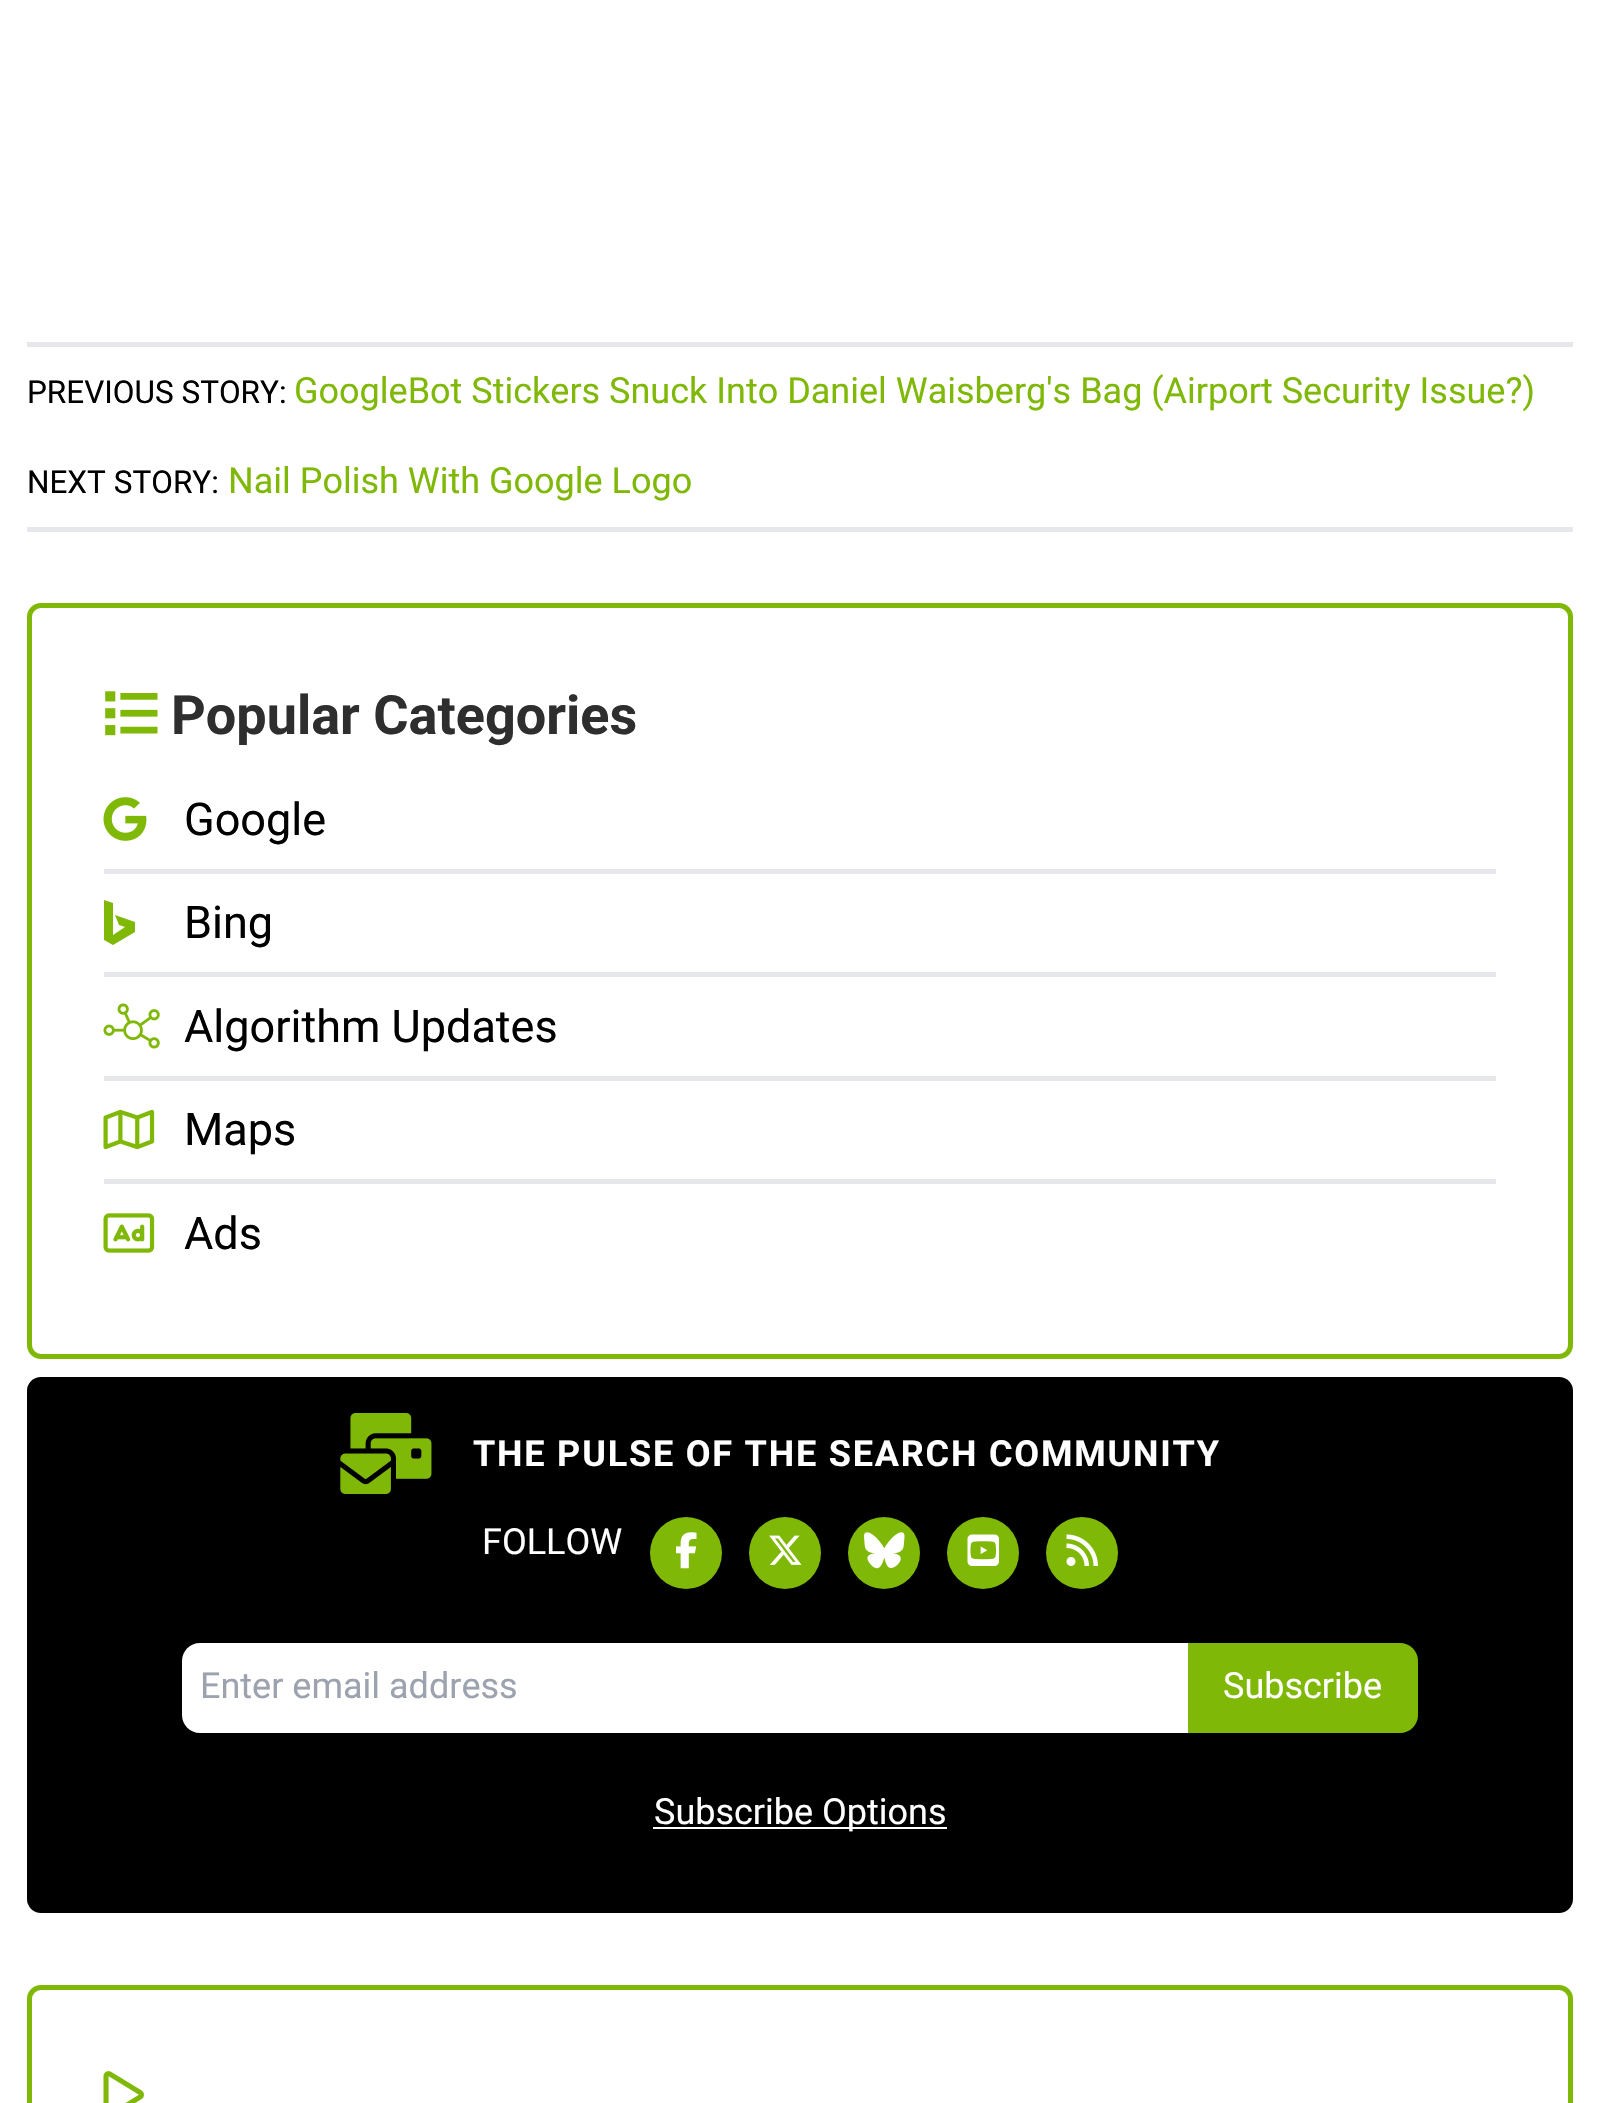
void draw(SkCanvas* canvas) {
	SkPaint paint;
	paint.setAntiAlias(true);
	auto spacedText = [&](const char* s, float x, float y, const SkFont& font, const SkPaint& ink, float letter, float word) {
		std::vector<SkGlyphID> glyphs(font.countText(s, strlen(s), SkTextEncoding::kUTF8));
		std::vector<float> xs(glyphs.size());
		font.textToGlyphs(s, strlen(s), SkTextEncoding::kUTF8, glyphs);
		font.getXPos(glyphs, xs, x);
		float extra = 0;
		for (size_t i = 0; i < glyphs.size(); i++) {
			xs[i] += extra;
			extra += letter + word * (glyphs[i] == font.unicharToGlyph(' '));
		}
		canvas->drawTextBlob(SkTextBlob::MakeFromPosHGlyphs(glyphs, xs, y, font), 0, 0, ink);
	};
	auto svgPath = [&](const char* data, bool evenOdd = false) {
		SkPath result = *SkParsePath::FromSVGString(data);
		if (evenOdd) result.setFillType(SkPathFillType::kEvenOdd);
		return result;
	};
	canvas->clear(0xffffffff);
	paint.setColor(0xffe5e7eb);
	canvas->drawRect(SkRect::MakeXYWH(27, 342, 1546, 5), paint);
	canvas->drawRect(SkRect::MakeXYWH(27, 527, 1546, 5), paint);
	SkFont f1(fontMgr->matchFamilyStyle("Roboto", SkFontStyle::Normal()), 31.5);
	f1.setSubpixel(true);
	paint.setColor(0xff000000);
	canvas->drawString("PREVIOUS STORY:", 27, 403, f1, paint);
	SkFont f2(fontMgr->matchFamilyStyle("Roboto", SkFontStyle::Normal()), 36);
	f2.setSubpixel(true);
	paint.setColor(0xff7fb806);
	canvas->drawString("GoogleBot Stickers Snuck Into Daniel Waisberg's Bag (Airport Security Issue?)", 294, 403, f2, paint);
	paint.setColor(0xff000000);
	canvas->drawString("NEXT STORY:", 27, 493, f1, paint);
	paint.setColor(0xff7fb806);
	canvas->drawString("Nail Polish With Google Logo", 228, 493, f2, paint);
	paint.setStroke(true);
	paint.setStrokeWidth(5);
	canvas->drawRoundRect(SkRect::MakeXYWH(29.5, 605.5, 1541, 751), 11.5, 11.5, paint);
	canvas->drawImageRect(SkImages::DeferredFromEncodedData(SkData::MakeFromFileName("img1.png")), SkRect::MakeXYWH(105, 691, 53, 45), SkSamplingOptions());
	SkFont f3(fontMgr->matchFamilyStyle("Roboto", SkFontStyle::Bold()), 54);
	f3.setSubpixel(true);
	paint.setStroke(false);
	paint.setColor(0xff2e2e2e);
	canvas->drawString("Popular Categories", 171, 734, f3, paint);
	paint.setColor(0xffe5e7eb);
	canvas->drawRect(SkRect::MakeXYWH(104, 869, 1392, 5), paint);
	canvas->drawImageRect(SkImages::DeferredFromEncodedData(SkData::MakeFromFileName("img2.png")), SkRect::MakeXYWH(103, 797, 44, 44), SkSamplingOptions());
	SkFont f4(fontMgr->matchFamilyStyle("Roboto", SkFontStyle::Normal()), 45);
	f4.setSubpixel(true);
	paint.setColor(0xff000000);
	canvas->drawString("Google", 184, 835, f4, paint);
	paint.setColor(0xffe5e7eb);
	canvas->drawRect(SkRect::MakeXYWH(104, 972, 1392, 5), paint);
	paint.setColor(0xff7fb806);
	canvas->drawPath(svgPath("M104 900V940L113 945L135 932V922L115 915L119 925L125 927L113 935V903Z"), paint);
	paint.setColor(0xff000000);
	canvas->drawString("Bing", 184, 938, f4, paint);
	paint.setColor(0xffe5e7eb);
	canvas->drawRect(SkRect::MakeXYWH(104, 1076, 1392, 5), paint);
	canvas->drawImageRect(SkImages::DeferredFromEncodedData(SkData::MakeFromFileName("img3.png")), SkRect::MakeXYWH(103, 1003, 57, 46), SkSamplingOptions());
	paint.setColor(0xff000000);
	canvas->drawString("Algorithm Updates", 184, 1042, f4, paint);
	paint.setColor(0xffe5e7eb);
	canvas->drawRect(SkRect::MakeXYWH(104, 1179, 1392, 5), paint);
	canvas->drawImageRect(SkImages::DeferredFromEncodedData(SkData::MakeFromFileName("img4.png")), SkRect::MakeXYWH(103, 1109, 52, 41), SkSamplingOptions());
	paint.setColor(0xff000000);
	canvas->drawString("Maps", 184, 1145, f4, paint);
	canvas->drawImageRect(SkImages::DeferredFromEncodedData(SkData::MakeFromFileName("img5.png")), SkRect::MakeXYWH(103, 1213, 52, 40), SkSamplingOptions());
	canvas->drawString("Ads", 184, 1249, f4, paint);
	canvas->drawRoundRect(SkRect::MakeXYWH(27, 1377, 1546, 536), 14, 14, paint);
	canvas->drawImageRect(SkImages::DeferredFromEncodedData(SkData::MakeFromFileName("img6.png")), SkRect::MakeXYWH(340, 1413, 92, 81), SkSamplingOptions());
	SkFont f5(fontMgr->matchFamilyStyle("Roboto", SkFontStyle::Bold()), 36);
	f5.setSubpixel(true);
	paint.setColor(0xffffffff);
	spacedText("THE PULSE OF THE SEARCH COMMUNITY", 473, 1466, f5, paint, 1.8, 0);
	canvas->drawString("FOLLOW", 482, 1554, f2, paint);
	paint.setColor(0xff7fb806);
	canvas->drawCircle(686, 1553, 36, paint);
	canvas->drawImageRect(SkImages::DeferredFromEncodedData(SkData::MakeFromFileName("img7.png")), SkRect::MakeXYWH(676, 1532, 21, 37), SkSamplingOptions());
	canvas->drawCircle(785, 1553, 36, paint);
	canvas->drawImageRect(SkImages::DeferredFromEncodedData(SkData::MakeFromFileName("img8.png")), SkRect::MakeXYWH(769, 1535, 33, 30), SkSamplingOptions());
	canvas->drawCircle(884, 1553, 36, paint);
	canvas->drawImageRect(SkImages::DeferredFromEncodedData(SkData::MakeFromFileName("img9.png")), SkRect::MakeXYWH(864, 1532, 41, 37), SkSamplingOptions());
	canvas->drawCircle(983, 1553, 36, paint);
	canvas->drawImageRect(SkImages::DeferredFromEncodedData(SkData::MakeFromFileName("img10.png")), SkRect::MakeXYWH(967, 1534, 32, 32), SkSamplingOptions());
	canvas->drawCircle(1082, 1553, 36, paint);
	canvas->drawImageRect(SkImages::DeferredFromEncodedData(SkData::MakeFromFileName("img11.png")), SkRect::MakeXYWH(1066, 1534, 32, 32), SkSamplingOptions());
	paint.setColor(0xffffffff);
	canvas->drawPath(svgPath("M200 1643H1188V1733H200C190 1733 182 1725 182 1715V1661C182 1651 190 1643 200 1643Z"), paint);
	paint.setColor(0xff9ca3af);
	canvas->drawString("Enter email address", 200, 1698, f2, paint);
	paint.setColor(0xff7fb806);
	canvas->drawPath(svgPath("M1188 1643H1400C1410 1643 1418 1651 1418 1661V1715C1418 1725 1410 1733 1400 1733H1188Z"), paint);
	paint.setColor(0xffffffff);
	canvas->drawString("Subscribe", 1223, 1698, f2, paint);
	canvas->drawRect(SkRect::MakeXYWH(653, 1827, 294, 2), paint);
	canvas->drawString("Subscribe Options", 654, 1824, f2, paint);
	paint.setStroke(true);
	paint.setColor(0xff7fb806);
	canvas->drawRoundRect(SkRect::MakeXYWH(29.5, 1987.5, 1541, 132), 11.5, 11.5, paint);
	canvas->drawImageRect(SkImages::DeferredFromEncodedData(SkData::MakeFromFileName("img12.png")), SkRect::MakeXYWH(103, 2071, 41, 32), SkSamplingOptions());
}
